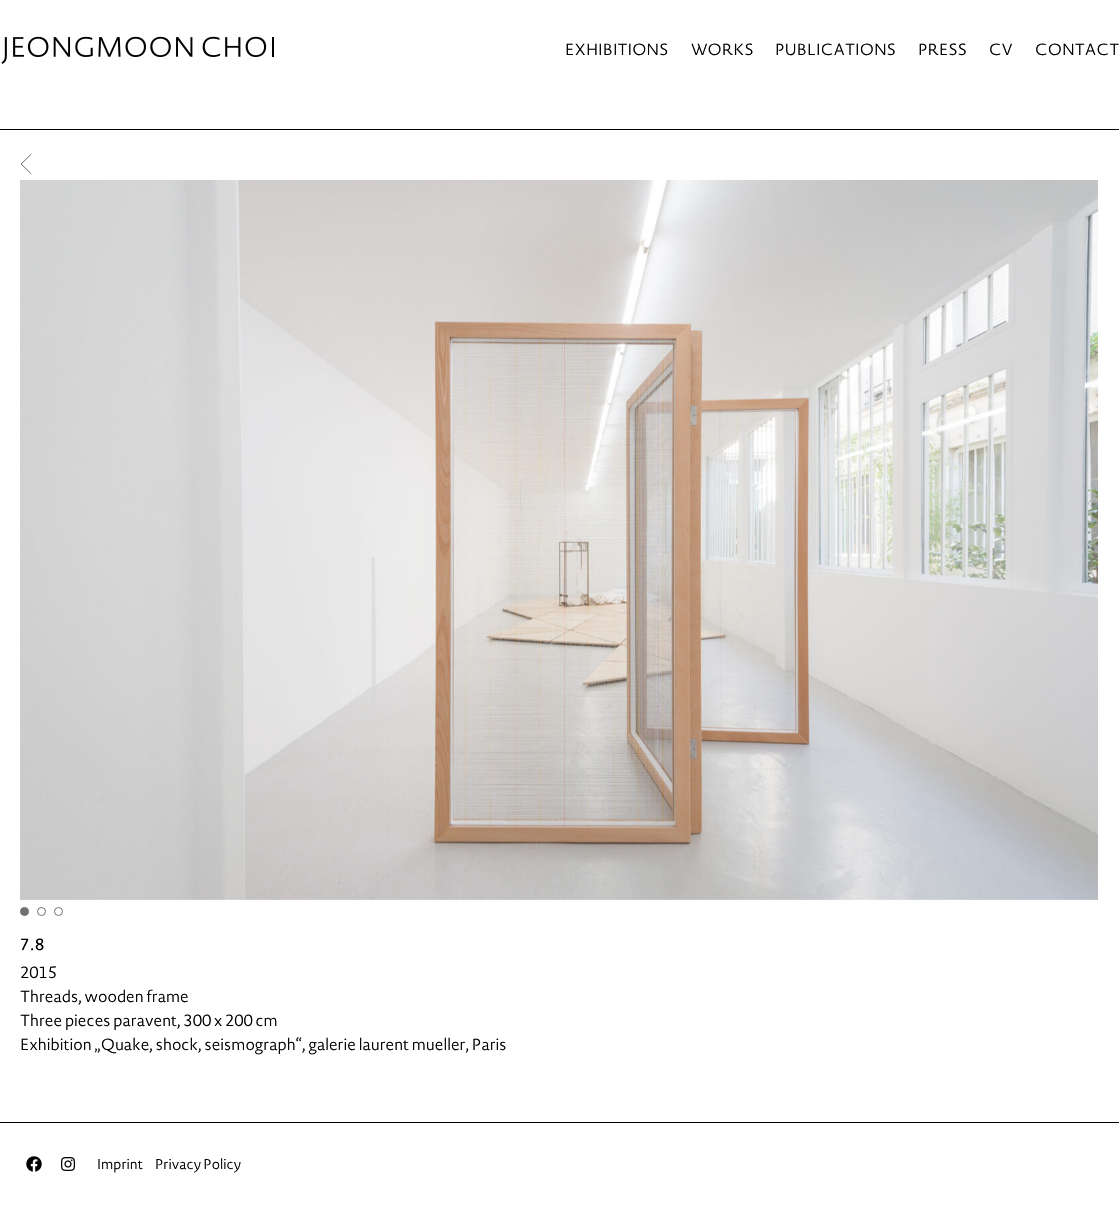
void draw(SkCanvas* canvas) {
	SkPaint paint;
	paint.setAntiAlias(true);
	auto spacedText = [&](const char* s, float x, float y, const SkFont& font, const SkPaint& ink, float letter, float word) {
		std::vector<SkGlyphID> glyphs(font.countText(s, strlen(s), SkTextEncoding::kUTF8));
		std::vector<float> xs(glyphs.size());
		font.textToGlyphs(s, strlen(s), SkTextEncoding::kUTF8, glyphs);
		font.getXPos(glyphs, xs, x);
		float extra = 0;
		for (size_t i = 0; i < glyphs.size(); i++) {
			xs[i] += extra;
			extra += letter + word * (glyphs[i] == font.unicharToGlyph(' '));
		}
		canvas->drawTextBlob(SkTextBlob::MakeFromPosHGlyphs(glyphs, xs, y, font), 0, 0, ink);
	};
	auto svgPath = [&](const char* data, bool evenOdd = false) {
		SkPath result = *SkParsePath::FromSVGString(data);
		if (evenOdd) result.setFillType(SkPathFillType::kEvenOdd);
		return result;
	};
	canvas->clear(0xffffffff);
	paint.setColor(0xff000000);
	canvas->drawRect(SkRect::MakeXYWH(0, 129, 1119, 1), paint);
	canvas->drawImageRect(SkImages::DeferredFromEncodedData(SkData::MakeFromFileName("img1.png")), SkRect::MakeXYWH(1, 36, 273, 28), SkSamplingOptions());
	SkFont f1(fontMgr->matchFamilyStyle("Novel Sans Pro", SkFontStyle(300, SkFontStyle::kNormal_Width, SkFontStyle::kUpright_Slant)), 16);
	f1.setSubpixel(true);
	canvas->drawString("EXHIBITIONS", 565, 55, f1, paint);
	canvas->drawString("WORKS", 691, 55, f1, paint);
	canvas->drawString("PUBLICATIONS", 775, 55, f1, paint);
	canvas->drawString("PRESS", 918, 55, f1, paint);
	canvas->drawString("CV", 989, 55, f1, paint);
	canvas->drawString("CONTACT", 1035, 55, f1, paint);
	paint.setStroke(true);
	paint.setStrokeWidth(1);
	paint.setStrokeCap(SkPaint::kRound_Cap);
	paint.setColor(0xff707070);
	canvas->drawPath(svgPath("M31 154.5L21 164L31 173.5"), paint);
	canvas->drawImageRect(SkImages::DeferredFromEncodedData(SkData::MakeFromFileName("img2.png")), SkRect::MakeXYWH(20, 180, 1078, 720), SkSamplingOptions());
	paint.setStroke(false);
	canvas->drawCircle(24.5, 911.5, 4, paint);
	paint.setStroke(true);
	paint.setStrokeCap(SkPaint::kButt_Cap);
	canvas->drawCircle(24.5, 911.5, 4, paint);
	canvas->drawCircle(41.5, 911.5, 4, paint);
	canvas->drawCircle(58.5, 911.5, 4, paint);
	SkFont f2(fontMgr->matchFamilyStyle("Novel Sans Pro", SkFontStyle::Normal()), 16);
	f2.setSubpixel(true);
	paint.setStroke(false);
	paint.setColor(0xff000000);
	spacedText("7.8", 20, 950, f2, paint, 1, 0);
	canvas->drawString("2015", 20, 978, f1, paint);
	canvas->drawString("Threads, wooden frame", 20, 1002, f1, paint);
	canvas->drawString("Three pieces paravent, 300 x 200 cm", 20, 1026, f1, paint);
	canvas->drawString("Exhibition „Quake, shock, seismograph“, galerie laurent mueller, Paris", 20, 1050, f1, paint);
	canvas->drawRect(SkRect::MakeXYWH(0, 1122, 1119, 1), paint);
	canvas->drawImageRect(SkImages::DeferredFromEncodedData(SkData::MakeFromFileName("img3.png")), SkRect::MakeXYWH(26, 1156, 16, 16), SkSamplingOptions());
	canvas->drawImageRect(SkImages::DeferredFromEncodedData(SkData::MakeFromFileName("img4.png")), SkRect::MakeXYWH(61, 1157, 14, 14), SkSamplingOptions());
	SkFont f3(fontMgr->matchFamilyStyle("Novel Sans Pro", SkFontStyle(300, SkFontStyle::kNormal_Width, SkFontStyle::kUpright_Slant)), 14);
	f3.setSubpixel(true);
	canvas->drawString("Imprint", 97, 1169, f3, paint);
	canvas->drawString("Privacy Policy", 155, 1169, f3, paint);
}
